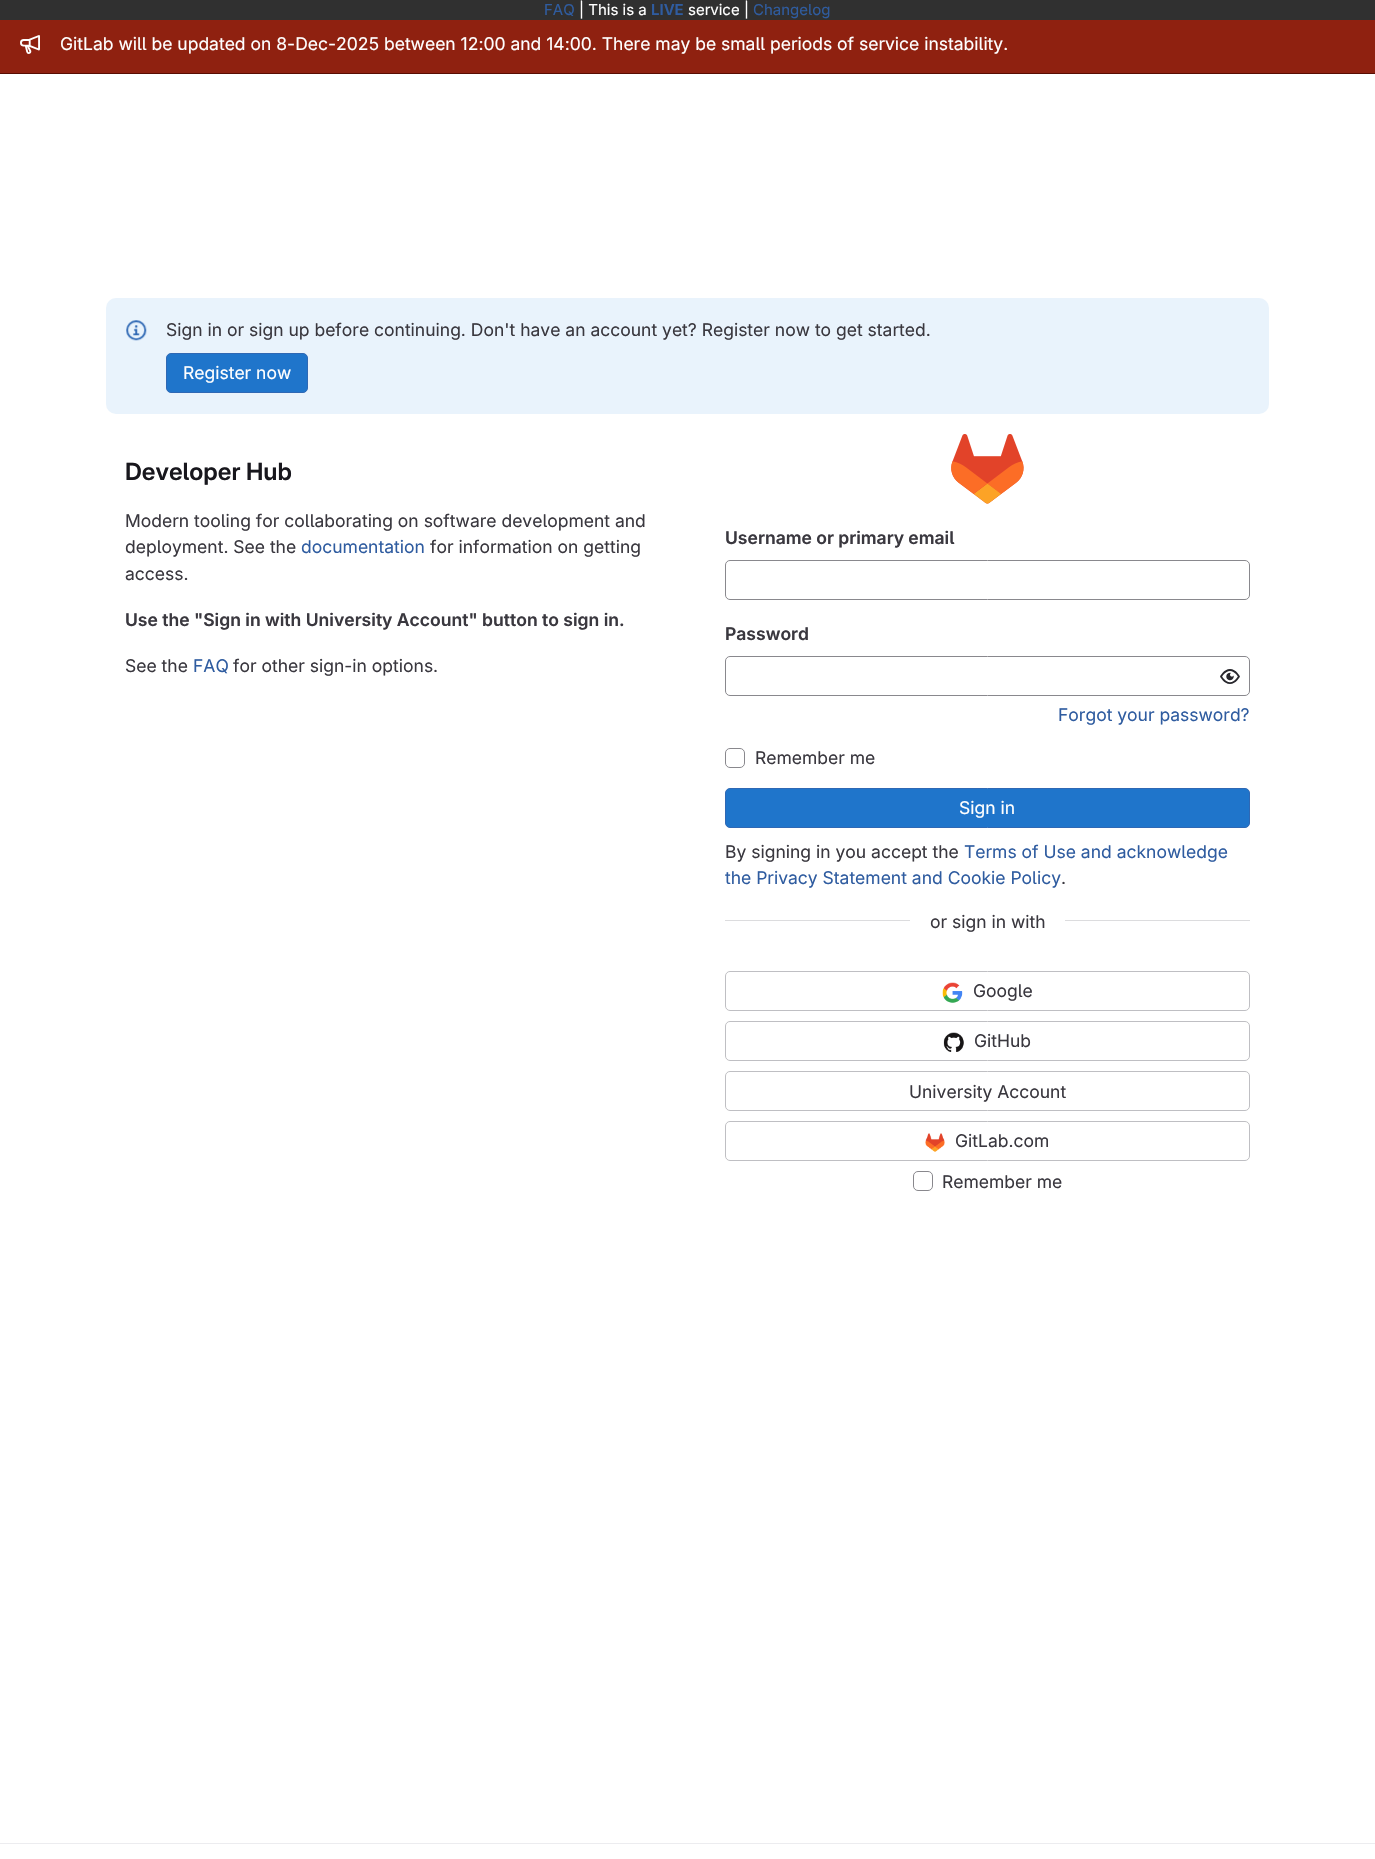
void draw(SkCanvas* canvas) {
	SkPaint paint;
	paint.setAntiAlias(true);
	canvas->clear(0xffffffff);
	paint.setColor(0xff303030);
	canvas->drawRect(SkRect::MakeXYWH(0, 0, 1375, 20), paint);
	SkFont f1(fontMgr->matchFamilyStyle("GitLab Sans", SkFontStyle::Normal()), 15);
	f1.setSubpixel(true);
	paint.setColor(0xff2f5ca0);
	canvas->drawString("FAQ", 544, 15, f1, paint);
	paint.setColor(0xffffffff);
	canvas->drawString("| This is a", 579, 15, f1, paint);
	SkFont f2(fontMgr->matchFamilyStyle("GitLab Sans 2", SkFontStyle(600, SkFontStyle::kNormal_Width, SkFontStyle::kUpright_Slant)), 15);
	f2.setSubpixel(true);
	paint.setColor(0xff2f5ca0);
	canvas->drawString("LIVE", 651, 15, f2, paint);
	paint.setColor(0xffffffff);
	canvas->drawString("service |", 688, 15, f1, paint);
	paint.setColor(0xff2f5ca0);
	canvas->drawString("Changelog", 753, 15, f1, paint);
	paint.setColor(0xff8f2110);
	canvas->drawRect(SkRect::MakeXYWH(0, 20, 1375, 53), paint);
	paint.setColor(0xff580d02);
	canvas->drawRect(SkRect::MakeXYWH(0, 73, 1375, 1), paint);
	canvas->drawImageRect(SkImages::DeferredFromEncodedData(SkData::MakeFromFileName("img1.png")), SkRect::MakeXYWH(20, 35, 20, 19), SkSamplingOptions());
	SkFont f3(fontMgr->matchFamilyStyle("GitLab Sans", SkFontStyle::Normal()), 17.5);
	f3.setSubpixel(true);
	paint.setColor(0xffffffff);
	canvas->drawString("GitLab will be updated on 8-Dec-2025 between 12:00 and 14:00. There may be small periods of service instability.", 60, 50, f3, paint);
	paint.setColor(0xffe9f3fc);
	canvas->drawRoundRect(SkRect::MakeXYWH(106, 298, 1163, 116), 10, 10, paint);
	canvas->drawImageRect(SkImages::DeferredFromEncodedData(SkData::MakeFromFileName("img2.png")), SkRect::MakeXYWH(126, 320, 21, 21), SkSamplingOptions());
	paint.setColor(0xff3a383f);
	canvas->drawString("Sign in or sign up before continuing. Don't have an account yet? Register now to get started.", 166, 336, f3, paint);
	paint.setColor(0xff1f75cb);
	canvas->drawRoundRect(SkRect::MakeXYWH(166.5, 353.5, 141, 39), 4.5, 4.5, paint);
	paint.setStroke(true);
	paint.setStrokeWidth(1);
	paint.setColor(0xff2f68b4);
	canvas->drawRoundRect(SkRect::MakeXYWH(166.5, 353.5, 141, 39), 4.5, 4.5, paint);
	paint.setStroke(false);
	paint.setColor(0xffffffff);
	canvas->drawString("Register now", 183, 379, f3, paint);
	SkFont f4(fontMgr->matchFamilyStyle("GitLab Sans", SkFontStyle(600, SkFontStyle::kNormal_Width, SkFontStyle::kUpright_Slant)), 23.75);
	f4.setSubpixel(true);
	paint.setColor(0xff18171d);
	canvas->drawString("Developer Hub", 125, 480, f4, paint);
	paint.setColor(0xff3a383f);
	canvas->drawString("Modern tooling for collaborating on software development and", 125, 527, f3, paint);
	canvas->drawString("deployment. See the", 125, 553, f3, paint);
	paint.setColor(0xff2f5ca0);
	canvas->drawString("documentation", 301, 553, f3, paint);
	paint.setColor(0xff3a383f);
	canvas->drawString("for information on getting", 430, 553, f3, paint);
	canvas->drawString("access.", 125, 580, f3, paint);
	SkFont f5(fontMgr->matchFamilyStyle("GitLab Sans 2", SkFontStyle(600, SkFontStyle::kNormal_Width, SkFontStyle::kUpright_Slant)), 17.5);
	f5.setSubpixel(true);
	canvas->drawString("Use the \"Sign in with University Account\" button to sign in.", 125, 626, f5, paint);
	canvas->drawString("See the", 125, 672, f3, paint);
	paint.setColor(0xff2f5ca0);
	canvas->drawString("FAQ", 193, 672, f3, paint);
	paint.setColor(0xff3a383f);
	canvas->drawString("for other sign-in options.", 233, 672, f3, paint);
	canvas->drawImageRect(SkImages::DeferredFromEncodedData(SkData::MakeFromFileName("img3.png")), SkRect::MakeXYWH(951, 434, 73, 70), SkSamplingOptions());
	canvas->drawString("Username or primary email", 725, 544, f5, paint);
	paint.setStroke(true);
	paint.setColor(0xff89888d);
	canvas->drawRoundRect(SkRect::MakeXYWH(725.5, 560.5, 524, 39), 4.5, 4.5, paint);
	paint.setStroke(false);
	paint.setColor(0xff3a383f);
	canvas->drawString("Password", 725, 640, f5, paint);
	paint.setStroke(true);
	paint.setColor(0xff89888d);
	canvas->drawRoundRect(SkRect::MakeXYWH(725.5, 656.5, 524, 39), 4.5, 4.5, paint);
	canvas->drawImageRect(SkImages::DeferredFromEncodedData(SkData::MakeFromFileName("img4.png")), SkRect::MakeXYWH(1220, 669, 20, 15), SkSamplingOptions());
	paint.setStroke(false);
	paint.setColor(0xff2f5ca0);
	canvas->drawString("Forgot your password?", 1058, 721, f3, paint);
	paint.setStroke(true);
	paint.setColor(0xff89888d);
	canvas->drawRoundRect(SkRect::MakeXYWH(725.5, 748.5, 19, 19), 4.5, 4.5, paint);
	paint.setStroke(false);
	paint.setColor(0xff3a383f);
	canvas->drawString("Remember me", 755, 764, f3, paint);
	paint.setColor(0xff1f75cb);
	canvas->drawRoundRect(SkRect::MakeXYWH(725.5, 788.5, 524, 39), 4.5, 4.5, paint);
	paint.setStroke(true);
	paint.setColor(0xff2f68b4);
	canvas->drawRoundRect(SkRect::MakeXYWH(725.5, 788.5, 524, 39), 4.5, 4.5, paint);
	paint.setStroke(false);
	paint.setColor(0xffffffff);
	canvas->drawString("Sign in", 959, 814, f3, paint);
	paint.setColor(0xff3a383f);
	canvas->drawString("By signing in you accept the", 725, 858, f3, paint);
	paint.setColor(0xff2f5ca0);
	canvas->drawString("Terms of Use and acknowledge", 964, 858, f3, paint);
	canvas->drawString("the Privacy Statement and Cookie Policy", 725, 884, f3, paint);
	paint.setColor(0xff3a383f);
	canvas->drawString(".", 1061, 884, f3, paint);
	paint.setColor(0xffdcdcde);
	canvas->drawRect(SkRect::MakeXYWH(725, 920, 185, 1), paint);
	paint.setColor(0xff3a383f);
	canvas->drawString("or sign in with", 930, 928, f3, paint);
	paint.setColor(0xffdcdcde);
	canvas->drawRect(SkRect::MakeXYWH(1065, 920, 185, 1), paint);
	paint.setStroke(true);
	paint.setColor(0xffbfbfc3);
	canvas->drawRoundRect(SkRect::MakeXYWH(725.5, 971.5, 524, 39), 4.5, 4.5, paint);
	canvas->drawImageRect(SkImages::DeferredFromEncodedData(SkData::MakeFromFileName("img5.png")), SkRect::MakeXYWH(942, 982, 21, 21), SkSamplingOptions());
	paint.setStroke(false);
	paint.setColor(0xff3a383f);
	canvas->drawString("Google", 973, 997, f3, paint);
	paint.setStroke(true);
	paint.setColor(0xffbfbfc3);
	canvas->drawRoundRect(SkRect::MakeXYWH(725.5, 1021.5, 524, 39), 4.5, 4.5, paint);
	canvas->drawImageRect(SkImages::DeferredFromEncodedData(SkData::MakeFromFileName("img6.png")), SkRect::MakeXYWH(943, 1032, 21, 20), SkSamplingOptions());
	paint.setStroke(false);
	paint.setColor(0xff3a383f);
	canvas->drawString("GitHub", 974, 1047, f3, paint);
	paint.setStroke(true);
	paint.setColor(0xffbfbfc3);
	canvas->drawRoundRect(SkRect::MakeXYWH(725.5, 1071.5, 524, 39), 4.5, 4.5, paint);
	paint.setStroke(false);
	paint.setColor(0xff3a383f);
	canvas->drawString("University Account", 909, 1098, f3, paint);
	paint.setStroke(true);
	paint.setColor(0xffbfbfc3);
	canvas->drawRoundRect(SkRect::MakeXYWH(725.5, 1121.5, 524, 39), 4.5, 4.5, paint);
	canvas->drawImageRect(SkImages::DeferredFromEncodedData(SkData::MakeFromFileName("img7.png")), SkRect::MakeXYWH(925, 1133, 20, 19), SkSamplingOptions());
	paint.setStroke(false);
	paint.setColor(0xff3a383f);
	canvas->drawString("GitLab.com", 955, 1147, f3, paint);
	paint.setStroke(true);
	paint.setColor(0xff89888d);
	canvas->drawRoundRect(SkRect::MakeXYWH(913.5, 1171.5, 19, 19), 4.5, 4.5, paint);
	paint.setStroke(false);
	paint.setColor(0xff3a383f);
	canvas->drawString("Remember me", 942, 1188, f3, paint);
	paint.setColor(0xffececef);
	canvas->drawRect(SkRect::MakeXYWH(0, 1843, 1375, 1), paint);
}
